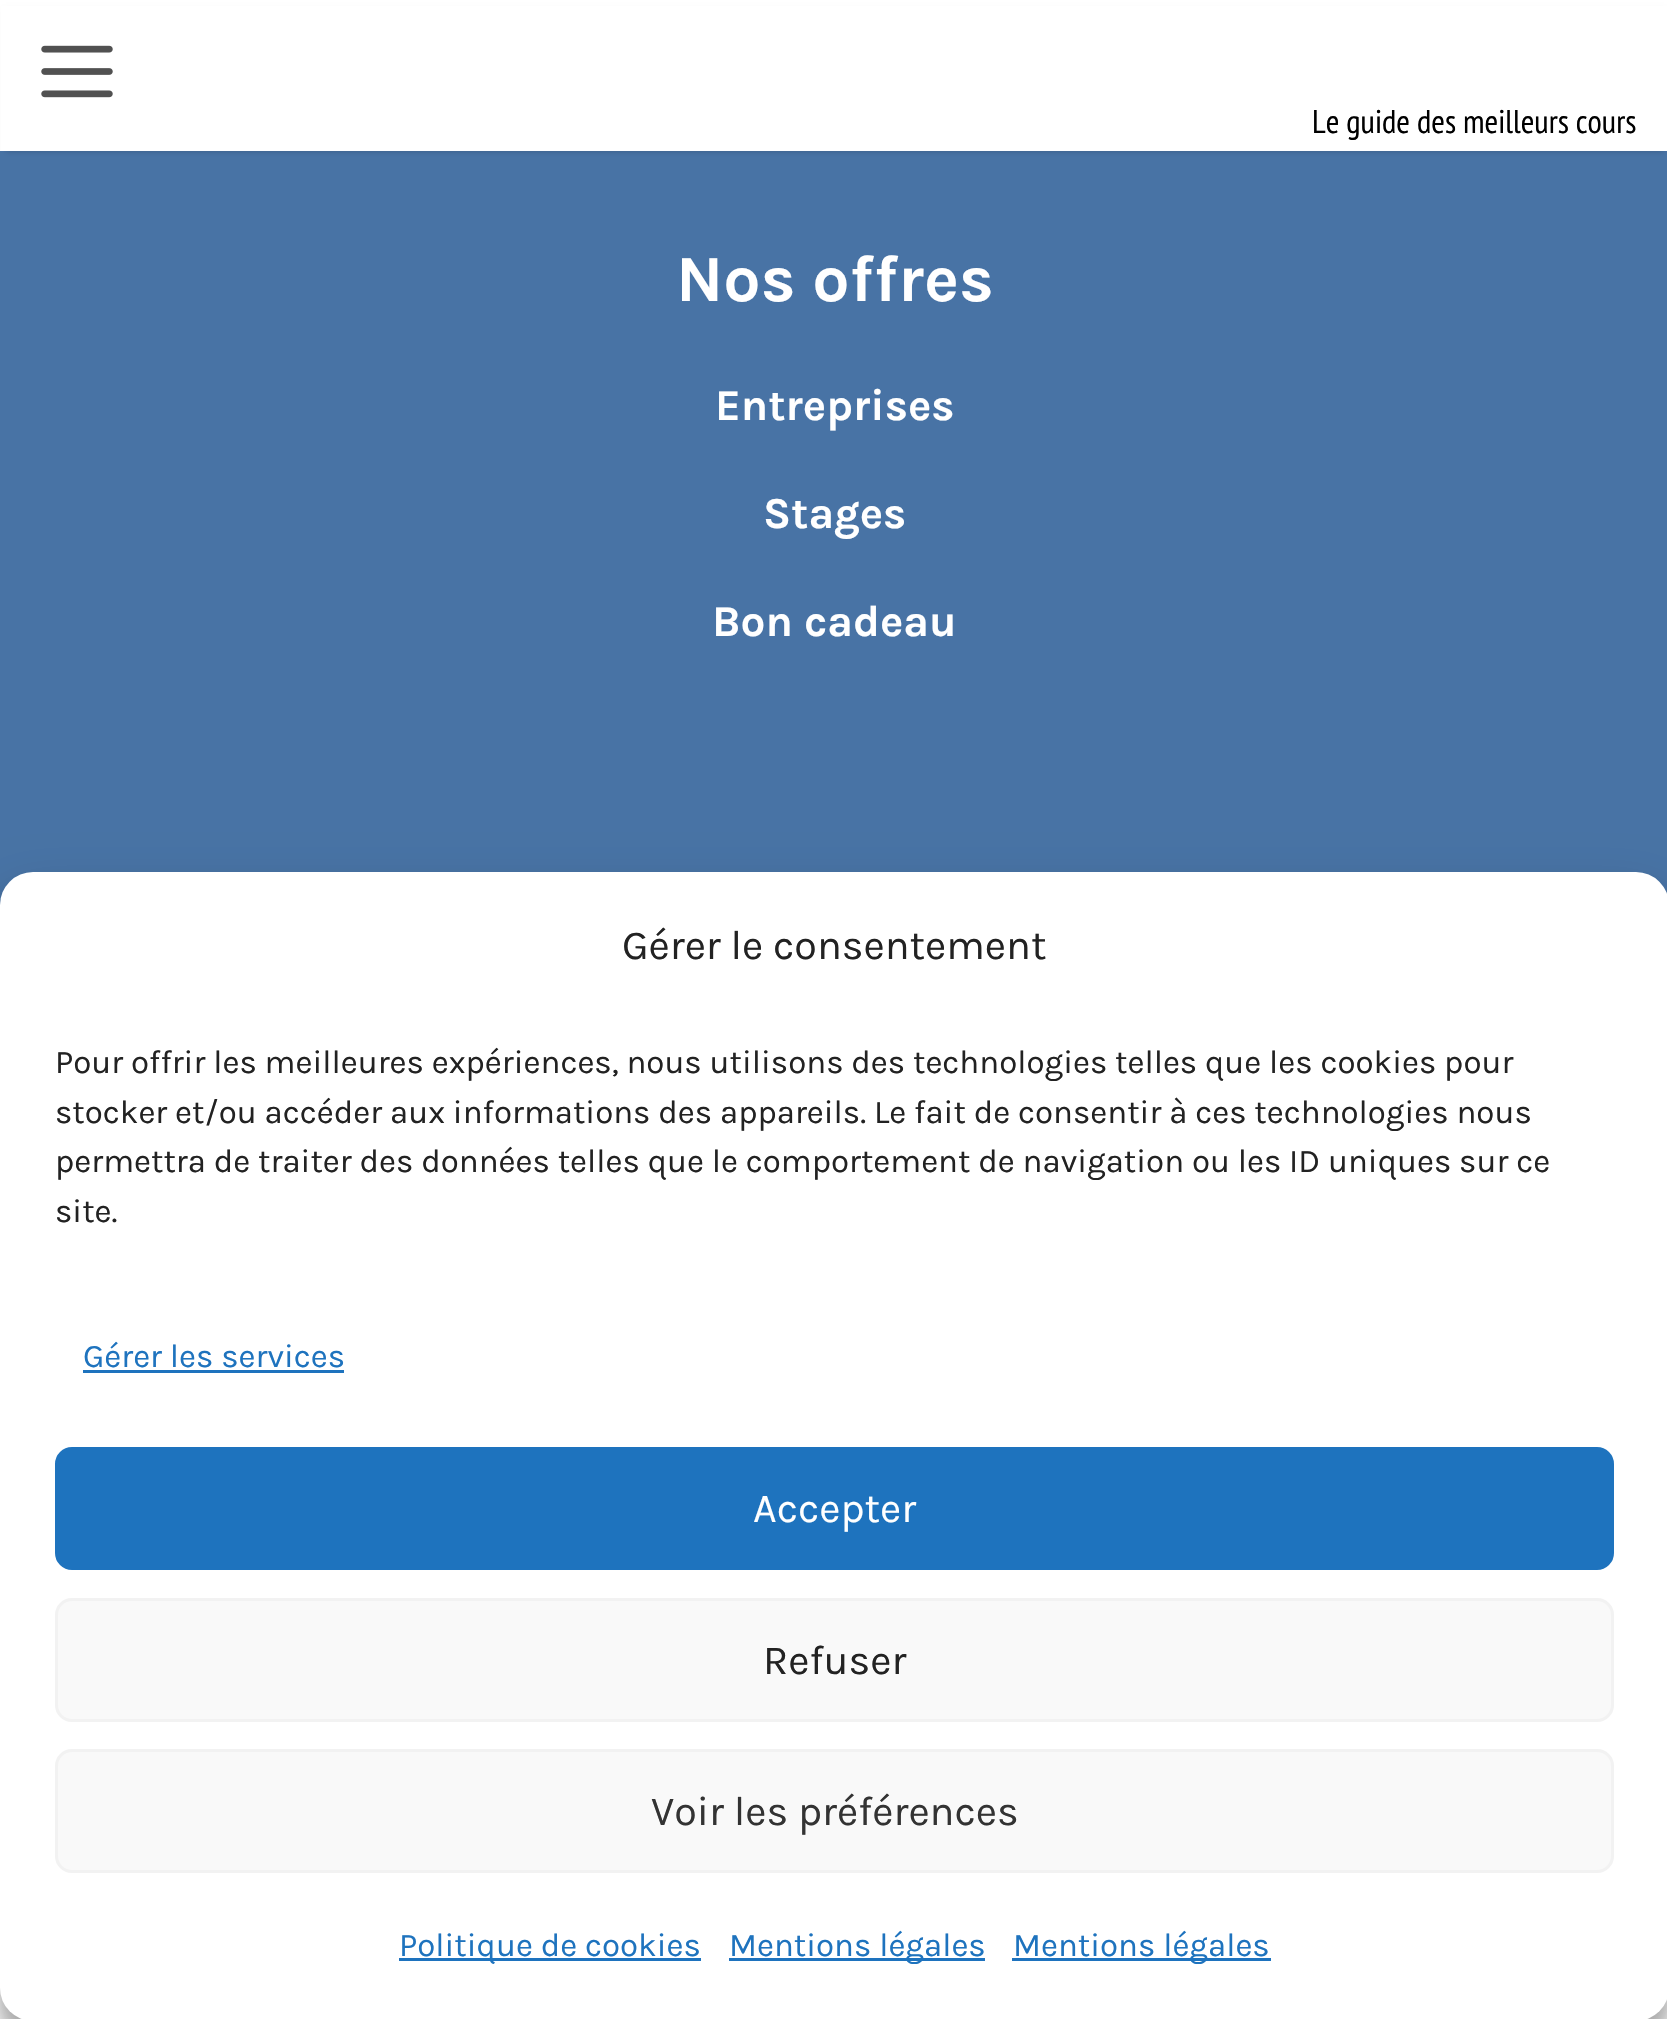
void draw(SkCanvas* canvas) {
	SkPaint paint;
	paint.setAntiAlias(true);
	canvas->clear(0xffffffff);
	paint.setColor(0xff4873a5);
	canvas->drawRect(SkRect::MakeXYWH(0, 151, 1667, 754), paint);
	paint.setColor(0x33000000);
	paint.setMaskFilter(SkMaskFilter::MakeBlur(kNormal_SkBlurStyle, 3));
	canvas->drawRect(SkRect::MakeXYWH(6, 11, 1658, 140), paint);
	paint.setMaskFilter(nullptr);
	paint.setColor(0xffffffff);
	canvas->drawRect(SkRect::MakeXYWH(1, 6, 1666, 145), paint);
	canvas->drawImageRect(SkImages::DeferredFromEncodedData(SkData::MakeFromFileName("img1.png")), SkRect::MakeXYWH(41, 45, 72, 53), SkSamplingOptions());
	SkFont f1(fontMgr->matchFamilyStyle("PT Sans Narrow", SkFontStyle::Normal()), 33);
	f1.setSubpixel(true);
	paint.setColor(0xff000000);
	canvas->drawString("Le guide des meilleurs cours", 1312, 133, f1, paint);
	SkFont f2(fontMgr->matchFamilyStyle("Karla", SkFontStyle::Bold()), 66);
	f2.setSubpixel(true);
	paint.setColor(0xffffffff);
	canvas->drawString("Nos offres", 676, 301, f2, paint);
	SkFont f3(fontMgr->matchFamilyStyle("Karla", SkFontStyle::Bold()), 44);
	f3.setSubpixel(true);
	canvas->drawString("Entreprises", 715, 420, f3, paint);
	canvas->drawString("Stages", 763, 528, f3, paint);
	canvas->drawString("Bon cadeau", 712, 636, f3, paint);
	paint.setColor(0x3b000000);
	paint.setMaskFilter(SkMaskFilter::MakeBlur(kNormal_SkBlurStyle, 8));
	canvas->drawRoundRect(SkRect::MakeXYWH(0, 888, 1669, 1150), 33, 33, paint);
	paint.setMaskFilter(nullptr);
	paint.setColor(0x30000000);
	paint.setMaskFilter(SkMaskFilter::MakeBlur(kNormal_SkBlurStyle, 27.5));
	canvas->drawRoundRect(SkRect::MakeXYWH(0, 899, 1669, 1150), 33, 33, paint);
	paint.setMaskFilter(nullptr);
	paint.setColor(0xffffffff);
	canvas->drawRoundRect(SkRect::MakeXYWH(0, 872, 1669, 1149), 33, 33, paint);
	SkFont f4(fontMgr->matchFamilyStyle("Karla", SkFontStyle::Normal()), 41.25);
	f4.setSubpixel(true);
	paint.setColor(0xff222222);
	canvas->drawString("Gérer le consentement", 622, 959, f4, paint);
	SkFont f5(fontMgr->matchFamilyStyle("Karla", SkFontStyle::Normal()), 33);
	f5.setSubpixel(true);
	canvas->drawString("Pour offrir les meilleures expériences, nous utilisons des technologies telles que les cookies pour", 55, 1073, f5, paint);
	canvas->drawString("stocker et/ou accéder aux informations des appareils. Le fait de consentir à ces technologies nous", 55, 1123, f5, paint);
	canvas->drawString("permettra de traiter des données telles que le comportement de navigation ou les ID uniques sur ce", 55, 1172, f5, paint);
	canvas->drawString("site.", 55, 1222, f5, paint);
	paint.setColor(0xff1e73be);
	canvas->drawString("Gérer les services", 83, 1367, f5, paint);
	canvas->drawRect(SkRect::MakeXYWH(83, 1370, 261, 3), paint);
	canvas->drawRoundRect(SkRect::MakeXYWH(56.5, 1448.5, 1556, 120), 15.5, 15.5, paint);
	paint.setStroke(true);
	paint.setStrokeWidth(3);
	canvas->drawRoundRect(SkRect::MakeXYWH(56.5, 1448.5, 1556, 120), 15.5, 15.5, paint);
	paint.setStroke(false);
	paint.setColor(0xffffffff);
	canvas->drawString("Accepter", 753, 1522, f4, paint);
	paint.setColor(0xfff9f9f9);
	canvas->drawRoundRect(SkRect::MakeXYWH(56.5, 1599.5, 1556, 121), 15.5, 15.5, paint);
	paint.setStroke(true);
	paint.setColor(0xfff2f2f2);
	canvas->drawRoundRect(SkRect::MakeXYWH(56.5, 1599.5, 1556, 121), 15.5, 15.5, paint);
	paint.setStroke(false);
	paint.setColor(0xff222222);
	canvas->drawString("Refuser", 763, 1674, f4, paint);
	paint.setColor(0xfff9f9f9);
	canvas->drawRoundRect(SkRect::MakeXYWH(56.5, 1750.5, 1556, 121), 15.5, 15.5, paint);
	paint.setStroke(true);
	paint.setColor(0xfff2f2f2);
	canvas->drawRoundRect(SkRect::MakeXYWH(56.5, 1750.5, 1556, 121), 15.5, 15.5, paint);
	paint.setStroke(false);
	paint.setColor(0xff333333);
	canvas->drawString("Voir les préférences", 651, 1825, f4, paint);
	paint.setColor(0xff1e73be);
	canvas->drawRect(SkRect::MakeXYWH(399, 1958, 302, 3), paint);
	canvas->drawString("Politique de cookies", 399, 1956, f5, paint);
	canvas->drawRect(SkRect::MakeXYWH(729, 1958, 256, 3), paint);
	canvas->drawString("Mentions légales", 729, 1956, f5, paint);
	canvas->drawRect(SkRect::MakeXYWH(1012, 1958, 259, 3), paint);
	canvas->drawString("Mentions légales", 1013, 1956, f5, paint);
}
